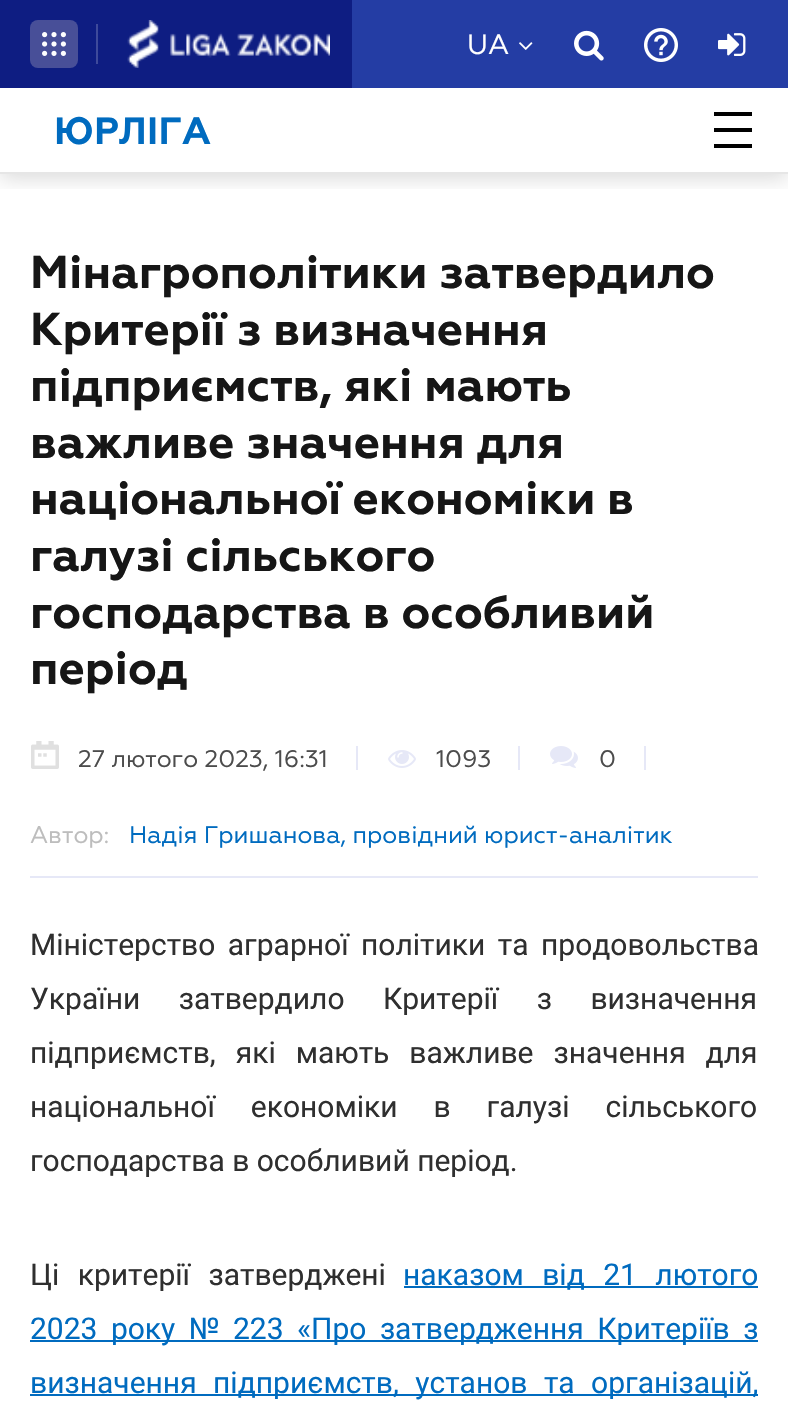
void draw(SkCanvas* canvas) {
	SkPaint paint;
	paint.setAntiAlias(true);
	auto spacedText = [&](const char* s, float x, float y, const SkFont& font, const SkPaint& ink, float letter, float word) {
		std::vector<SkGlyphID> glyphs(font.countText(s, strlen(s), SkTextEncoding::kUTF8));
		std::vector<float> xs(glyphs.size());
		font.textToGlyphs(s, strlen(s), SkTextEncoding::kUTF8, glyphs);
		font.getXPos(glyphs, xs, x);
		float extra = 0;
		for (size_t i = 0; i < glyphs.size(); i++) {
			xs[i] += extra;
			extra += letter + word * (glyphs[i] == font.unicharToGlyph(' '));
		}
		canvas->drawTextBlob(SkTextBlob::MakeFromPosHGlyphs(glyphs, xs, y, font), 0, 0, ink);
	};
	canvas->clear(0xffffffff);
	canvas->save();
	canvas->clipRect(SkRect::MakeXYWH(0, 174, 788, 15));
	paint.setColor(0x26000000);
	paint.setMaskFilter(SkMaskFilter::MakeBlur(kNormal_SkBlurStyle, 10));
	canvas->drawRect(SkRect::MakeXYWH(0, 92, 788, 86), paint);
	paint.setMaskFilter(nullptr);
	canvas->restore();
	paint.setColor(0xff243da4);
	canvas->drawRect(SkRect::MakeXYWH(352, 0, 436, 88), paint);
	paint.setColor(0xff0e1d82);
	canvas->drawRect(SkRect::MakeXYWH(0, 0, 352, 88), paint);
	paint.setColor(0xff484f98);
	canvas->drawRoundRect(SkRect::MakeXYWH(30, 20, 48, 48), 8, 8, paint);
	canvas->drawImageRect(SkImages::DeferredFromEncodedData(SkData::MakeFromFileName("img1.png")), SkRect::MakeXYWH(42, 32, 24, 24), SkSamplingOptions());
	paint.setColor(0xff3e4a9b);
	canvas->drawRect(SkRect::MakeXYWH(96, 24, 2, 40), paint);
	canvas->drawImageRect(SkImages::DeferredFromEncodedData(SkData::MakeFromFileName("img2.png")), SkRect::MakeXYWH(127, 20, 203, 48), SkSamplingOptions());
	SkFont f1(fontMgr->matchFamilyStyle("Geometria", SkFontStyle::Normal()), 28);
	f1.setSubpixel(true);
	paint.setColor(0xffffffff);
	canvas->drawString("UA", 467, 54, f1, paint);
	canvas->drawImageRect(SkImages::DeferredFromEncodedData(SkData::MakeFromFileName("img3.png")), SkRect::MakeXYWH(519, 42, 14, 8), SkSamplingOptions());
	canvas->drawImageRect(SkImages::DeferredFromEncodedData(SkData::MakeFromFileName("img4.png")), SkRect::MakeXYWH(574, 30, 30, 31), SkSamplingOptions());
	canvas->drawImageRect(SkImages::DeferredFromEncodedData(SkData::MakeFromFileName("img5.png")), SkRect::MakeXYWH(644, 28, 34, 34), SkSamplingOptions());
	canvas->drawImageRect(SkImages::DeferredFromEncodedData(SkData::MakeFromFileName("img6.png")), SkRect::MakeXYWH(718, 33, 28, 23), SkSamplingOptions());
	paint.setColor(0xffe6e6e6);
	canvas->drawRect(SkRect::MakeXYWH(0, 172, 788, 2), paint);
	SkFont f2(fontMgr->matchFamilyStyle("Geometria", SkFontStyle::Bold()), 38);
	f2.setSubpixel(true);
	paint.setColor(0xff006bbf);
	canvas->drawString("ЮРЛІГА", 54, 144, f2, paint);
	paint.setColor(0xff000000);
	canvas->drawRect(SkRect::MakeXYWH(714, 112, 38, 4), paint);
	canvas->drawRect(SkRect::MakeXYWH(714, 128, 38, 4), paint);
	canvas->drawRect(SkRect::MakeXYWH(714, 144, 38, 4), paint);
	paint.setColor(0xffe6e8f7);
	canvas->drawRect(SkRect::MakeXYWH(30, 876, 728, 2), paint);
	SkFont f3(fontMgr->matchFamilyStyle("Geometria", SkFontStyle::Bold()), 46);
	f3.setSubpixel(true);
	paint.setColor(0xff161616);
	canvas->drawString("Мінагрополітики затвердило", 30, 288, f3, paint);
	canvas->drawString("Критерії з визначення", 30, 345, f3, paint);
	canvas->drawString("підприємств, які мають", 30, 401, f3, paint);
	canvas->drawString("важливе значення для", 30, 458, f3, paint);
	canvas->drawString("національної економіки в", 30, 514, f3, paint);
	canvas->drawString("галузі сільського", 30, 571, f3, paint);
	canvas->drawString("господарства в особливий", 30, 628, f3, paint);
	canvas->drawString("період", 30, 684, f3, paint);
	canvas->drawImageRect(SkImages::DeferredFromEncodedData(SkData::MakeFromFileName("img7.png")), SkRect::MakeXYWH(31, 741, 28, 28), SkSamplingOptions());
	SkFont f4(fontMgr->matchFamilyStyle("Geometria", SkFontStyle::Normal()), 24);
	f4.setSubpixel(true);
	paint.setColor(0xff4c4c4c);
	canvas->drawString("27 лютого 2023, 16:31", 78, 767, f4, paint);
	paint.setColor(0xffe6e8f7);
	canvas->drawRect(SkRect::MakeXYWH(356, 746, 2, 24), paint);
	canvas->drawImageRect(SkImages::DeferredFromEncodedData(SkData::MakeFromFileName("img8.png")), SkRect::MakeXYWH(388, 750, 28, 18), SkSamplingOptions());
	paint.setColor(0xff4c4c4c);
	canvas->drawString("1093", 436, 767, f4, paint);
	paint.setColor(0xffe6e8f7);
	canvas->drawRect(SkRect::MakeXYWH(518, 746, 2, 24), paint);
	canvas->drawImageRect(SkImages::DeferredFromEncodedData(SkData::MakeFromFileName("img9.png")), SkRect::MakeXYWH(550, 746, 28, 22), SkSamplingOptions());
	paint.setColor(0xff4c4c4c);
	canvas->drawString("0", 599, 767, f4, paint);
	paint.setColor(0xffe6e8f7);
	canvas->drawRect(SkRect::MakeXYWH(644, 746, 2, 24), paint);
	paint.setColor(0xffbdbdbd);
	canvas->drawString("Автор:", 30, 843, f4, paint);
	paint.setColor(0xff006bbf);
	canvas->drawString("Надія Гришанова, провідний юрист-аналітик", 129, 843, f4, paint);
	SkFont f5(fontMgr->matchFamilyStyle("Roboto", SkFontStyle::Normal()), 30);
	f5.setSubpixel(true);
	paint.setColor(0xff2f2f2f);
	spacedText("Міністерство аграрної політики та продовольства", 30, 955, f5, paint, 0, 5);
	spacedText("України затвердило Критерії з визначення", 30, 1009, f5, paint, 0, 31);
	spacedText("підприємств, які мають важливе значення для", 30, 1063, f5, paint, 0, 12.5);
	spacedText("національної економіки в галузі сільського", 30, 1117, f5, paint, 0, 28.5);
	canvas->drawString("господарства в особливий період.", 30, 1171, f5, paint);
	spacedText("Ці критерії затверджені", 30, 1285, f5, paint, 0, 11);
	paint.setColor(0xff006bbf);
	canvas->drawRect(SkRect::MakeXYWH(404, 1286, 354, 2), paint);
	spacedText("наказом від 21 лютого", 403, 1285, f5, paint, 0, 11);
	canvas->drawRect(SkRect::MakeXYWH(30, 1340, 728, 2), paint);
	spacedText("2023 року № 223 «Про затвердження Критеріїв з", 30, 1339, f5, paint, 0, 6);
	canvas->drawRect(SkRect::MakeXYWH(30, 1394, 728, 2), paint);
	spacedText("визначення підприємств, установ та організацій,", 30, 1393, f5, paint, 0, 9);
}
